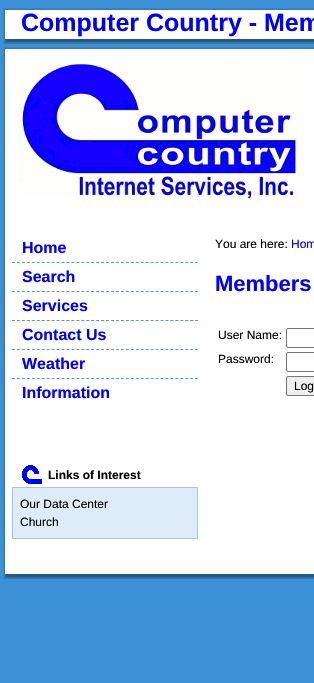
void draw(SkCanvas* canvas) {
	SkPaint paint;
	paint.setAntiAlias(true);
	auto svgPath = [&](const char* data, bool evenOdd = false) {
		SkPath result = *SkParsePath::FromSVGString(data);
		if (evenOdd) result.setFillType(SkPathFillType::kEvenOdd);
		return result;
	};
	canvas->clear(0xff3d91d6);
	canvas->drawImageRect(SkImages::DeferredFromEncodedData(SkData::MakeFromFileName("img1.png")), SkRect::MakeXYWH(3, 8, 311, 36), SkSamplingOptions());
	SkFont f1(fontMgr->matchFamilyStyle("Liberation Sans", SkFontStyle::Bold()), 25);
	f1.setSubpixel(true);
	paint.setColor(0xff0000fe);
	canvas->drawString("Computer Country - Mem", 21, 31, f1, paint);
	canvas->drawImageRect(SkImages::DeferredFromEncodedData(SkData::MakeFromFileName("img2.png")), SkRect::MakeXYWH(3, 47, 18, 18), SkSamplingOptions());
	canvas->drawImageRect(SkImages::DeferredFromEncodedData(SkData::MakeFromFileName("img3.png")), SkRect::MakeXYWH(21, 47, 293, 18), SkSamplingOptions());
	canvas->drawImageRect(SkImages::DeferredFromEncodedData(SkData::MakeFromFileName("img4.png")), SkRect::MakeXYWH(3, 65, 18, 493), SkSamplingOptions());
	paint.setColor(0xffffffff);
	canvas->drawRect(SkRect::MakeXYWH(21, 65, 293, 493), paint);
	canvas->drawImageRect(SkImages::DeferredFromEncodedData(SkData::MakeFromFileName("img5.png")), SkRect::MakeXYWH(20, 64, 276, 134), SkSamplingOptions());
	SkFont f2(fontMgr->matchFamilyStyle("Liberation Sans", SkFontStyle::Bold()), 16);
	f2.setSubpixel(true);
	paint.setColor(0xff0000fe);
	canvas->drawString("Home", 22, 253, f2, paint);
	paint.setStroke(true);
	paint.setStrokeWidth(1);
	paint.setColor(0xff4e9bda);
	paint.setPathEffect(SkDashPathEffect::Make({{3, 1.95f}}, 0));
	canvas->drawPath(svgPath("M12 262.5H198"), paint);
	paint.setPathEffect(nullptr);
	paint.setStroke(false);
	paint.setColor(0xff0000fe);
	canvas->drawString("Search", 22, 282, f2, paint);
	paint.setStroke(true);
	paint.setColor(0xff4e9bda);
	paint.setPathEffect(SkDashPathEffect::Make({{3, 1.95f}}, 0));
	canvas->drawPath(svgPath("M12 291.5H198"), paint);
	paint.setPathEffect(nullptr);
	paint.setStroke(false);
	paint.setColor(0xff0000fe);
	canvas->drawString("Services", 22, 311, f2, paint);
	paint.setStroke(true);
	paint.setColor(0xff4e9bda);
	paint.setPathEffect(SkDashPathEffect::Make({{3, 1.95f}}, 0));
	canvas->drawPath(svgPath("M12 320.5H198"), paint);
	paint.setPathEffect(nullptr);
	paint.setStroke(false);
	paint.setColor(0xff0000fe);
	canvas->drawString("Contact Us", 22, 340, f2, paint);
	paint.setStroke(true);
	paint.setColor(0xff4e9bda);
	paint.setPathEffect(SkDashPathEffect::Make({{3, 1.95f}}, 0));
	canvas->drawPath(svgPath("M12 349.5H198"), paint);
	paint.setPathEffect(nullptr);
	paint.setStroke(false);
	paint.setColor(0xff0000fe);
	canvas->drawString("Weather", 22, 369, f2, paint);
	paint.setStroke(true);
	paint.setColor(0xff4e9bda);
	paint.setPathEffect(SkDashPathEffect::Make({{3, 1.95f}}, 0));
	canvas->drawPath(svgPath("M12 378.5H198"), paint);
	paint.setPathEffect(nullptr);
	paint.setStroke(false);
	paint.setColor(0xff0000fe);
	canvas->drawString("Information", 22, 398, f2, paint);
	canvas->drawImageRect(SkImages::DeferredFromEncodedData(SkData::MakeFromFileName("img6.png")), SkRect::MakeXYWH(22, 465, 20, 19), SkSamplingOptions());
	SkFont f3(fontMgr->matchFamilyStyle("Liberation Sans", SkFontStyle::Bold()), 12);
	f3.setSubpixel(true);
	paint.setColor(0xff000000);
	canvas->drawString("Links of Interest", 48, 479, f3, paint);
	paint.setColor(0xffadd1ee);
	canvas->drawRect(SkRect::MakeXYWH(12, 487, 1, 1), paint);
	paint.setColor(0xff9ec8ea);
	canvas->drawRect(SkRect::MakeXYWH(13, 487, 184, 1), paint);
	paint.setColor(0xffadd1ee);
	canvas->drawRect(SkRect::MakeXYWH(197, 487, 1, 1), paint);
	paint.setColor(0xff9ec8ea);
	canvas->drawRect(SkRect::MakeXYWH(12, 488, 1, 50), paint);
	paint.setColor(0xffddecf8);
	canvas->drawRect(SkRect::MakeXYWH(13, 488, 184, 50), paint);
	paint.setColor(0xff9ec8ea);
	canvas->drawRect(SkRect::MakeXYWH(197, 488, 1, 50), paint);
	SkFont f4(fontMgr->matchFamilyStyle("Liberation Sans", SkFontStyle::Normal()), 12);
	f4.setSubpixel(true);
	paint.setColor(0xff000000);
	canvas->drawString("Our Data Center", 20, 508, f4, paint);
	canvas->drawString("Church", 20, 526, f4, paint);
	paint.setColor(0xffa3cceb);
	canvas->drawRect(SkRect::MakeXYWH(12, 538, 1, 1), paint);
	paint.setColor(0xff9ec8ea);
	canvas->drawRect(SkRect::MakeXYWH(13, 538, 184, 1), paint);
	paint.setColor(0xffa3cceb);
	canvas->drawRect(SkRect::MakeXYWH(197, 538, 1, 1), paint);
	paint.setColor(0xff000000);
	canvas->drawString("You are here:", 215, 248, f4, paint);
	paint.setColor(0xff0000fe);
	canvas->drawString("Hom", 291, 248, f4, paint);
	SkFont f5(fontMgr->matchFamilyStyle("Liberation Sans", SkFontStyle::Bold()), 22);
	f5.setSubpixel(true);
	canvas->drawString("Members", 215, 291, f5, paint);
	paint.setColor(0xff000000);
	canvas->drawString("User Name:", 218, 339, f4, paint);
	paint.setStroke(true);
	paint.setColor(0xff767676);
	canvas->drawRoundRect(SkRect::MakeXYWH(286.5, 328.5, 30, 19), 1.5, 1.5, paint);
	paint.setStroke(false);
	paint.setColor(0xff000000);
	canvas->drawString("Password:", 218, 363, f4, paint);
	paint.setStroke(true);
	paint.setColor(0xff767676);
	canvas->drawRoundRect(SkRect::MakeXYWH(286.5, 352.5, 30, 19), 1.5, 1.5, paint);
	paint.setStroke(false);
	paint.setColor(0xffefefef);
	canvas->drawRoundRect(SkRect::MakeXYWH(286.5, 376.5, 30, 19), 1.5, 1.5, paint);
	paint.setStroke(true);
	paint.setColor(0xff767676);
	canvas->drawRoundRect(SkRect::MakeXYWH(286.5, 376.5, 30, 19), 1.5, 1.5, paint);
	paint.setStroke(false);
	paint.setColor(0xff000000);
	canvas->drawString("Log", 294, 390, f4, paint);
	canvas->drawImageRect(SkImages::DeferredFromEncodedData(SkData::MakeFromFileName("img7.png")), SkRect::MakeXYWH(3, 558, 18, 21), SkSamplingOptions());
	canvas->drawImageRect(SkImages::DeferredFromEncodedData(SkData::MakeFromFileName("img8.png")), SkRect::MakeXYWH(21, 558, 293, 21), SkSamplingOptions());
}
